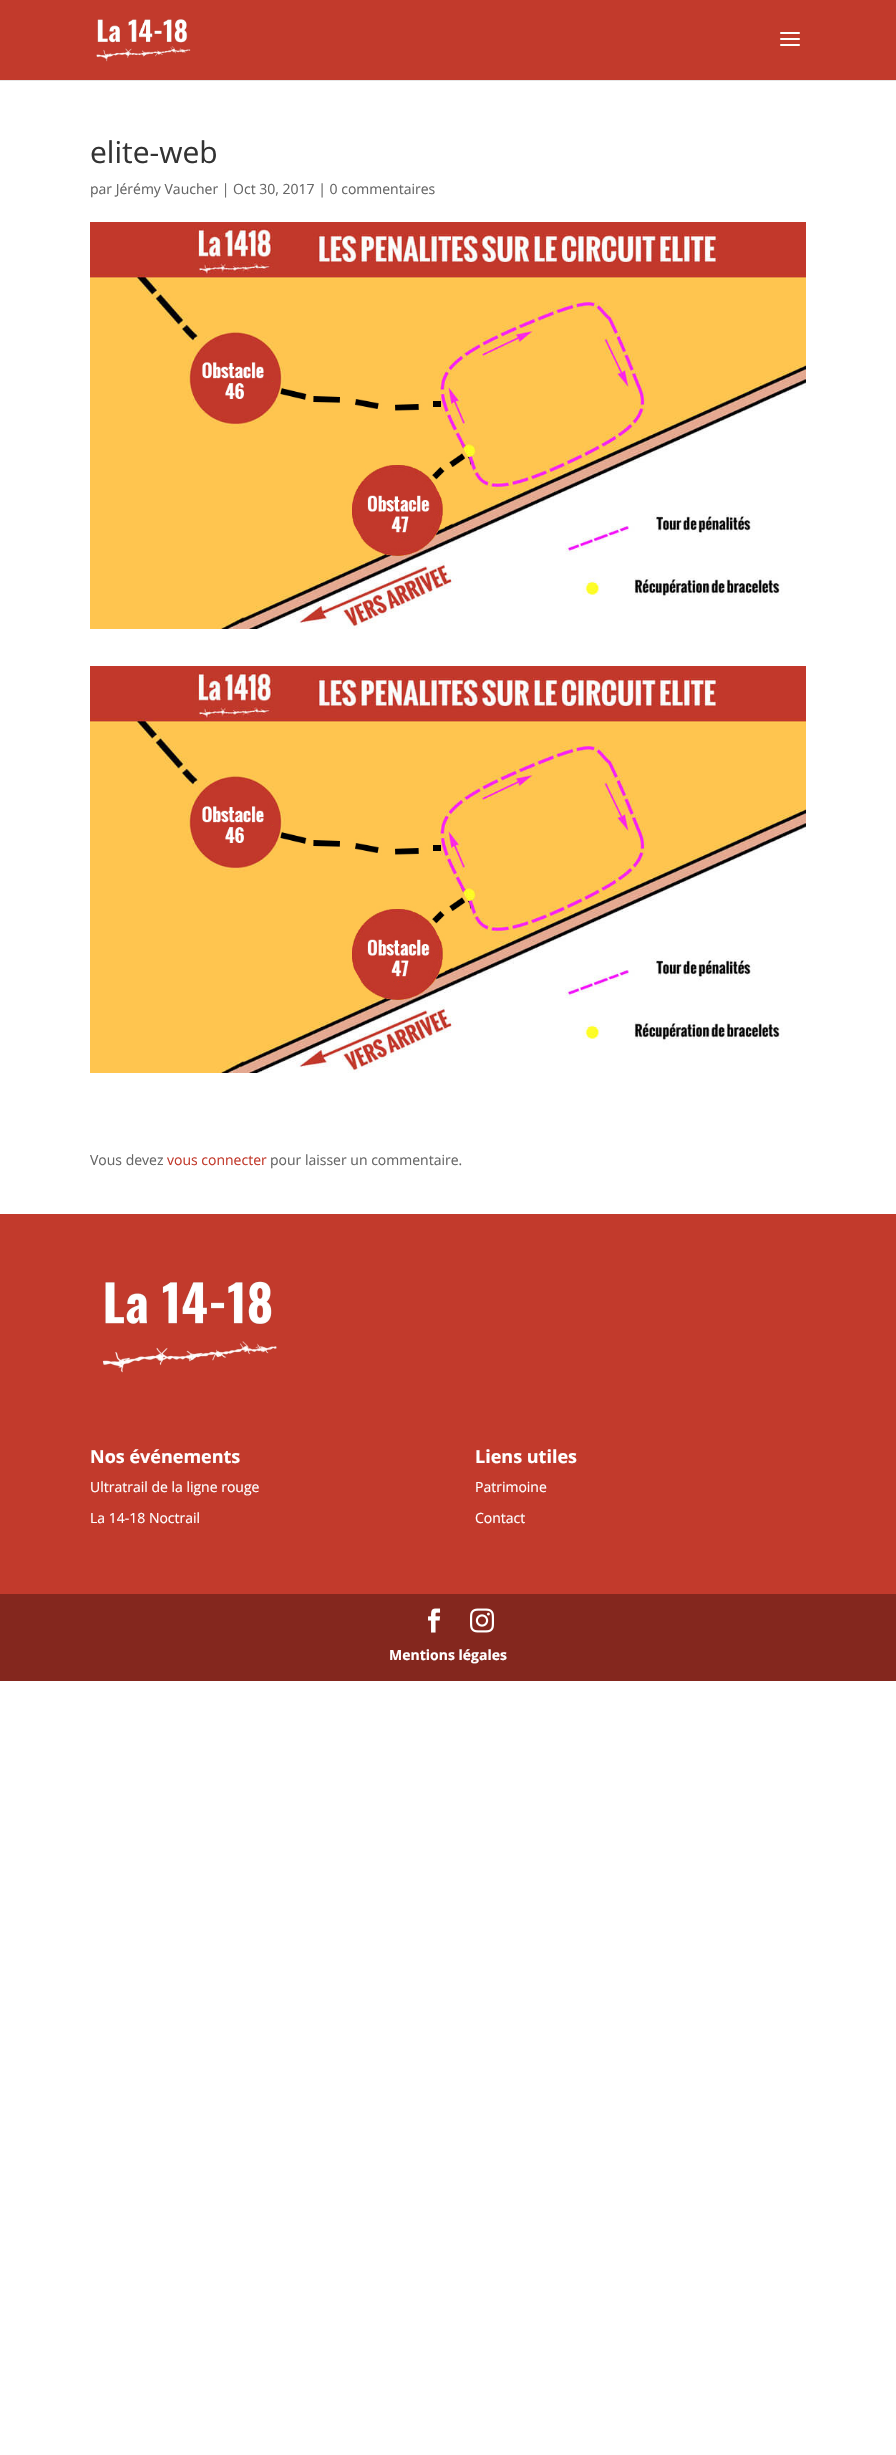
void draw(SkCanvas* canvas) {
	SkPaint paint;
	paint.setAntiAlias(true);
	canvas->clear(0xffffffff);
	paint.setColor(0xffe6e6e6);
	canvas->drawRect(SkRect::MakeXYWH(0, 80, 896, 1), paint);
	paint.setColor(0xffc23a2c);
	canvas->drawRect(SkRect::MakeXYWH(0, 0, 896, 80), paint);
	canvas->drawImageRect(SkImages::DeferredFromEncodedData(SkData::MakeFromFileName("img1.png")), SkRect::MakeXYWH(96, 19, 95, 43), SkSamplingOptions());
	canvas->drawImageRect(SkImages::DeferredFromEncodedData(SkData::MakeFromFileName("img2.png")), SkRect::MakeXYWH(780, 32, 20, 14), SkSamplingOptions());
	SkFont f1(fontMgr->matchFamilyStyle("Open Sans", SkFontStyle::Normal()), 30);
	f1.setSubpixel(true);
	paint.setColor(0xff333333);
	canvas->drawString("elite-web", 90, 163, f1, paint);
	SkFont f2(fontMgr->matchFamilyStyle("Open Sans", SkFontStyle::Normal()), 14);
	f2.setSubpixel(true);
	paint.setColor(0xff666666);
	canvas->drawString("par Jérémy Vaucher | Oct 30, 2017 | 0 commentaires", 90, 194, f2, paint);
	canvas->drawImageRect(SkImages::DeferredFromEncodedData(SkData::MakeFromFileName("img3.png")), SkRect::MakeXYWH(90, 222, 716, 407), SkSamplingOptions());
	canvas->drawImageRect(SkImages::DeferredFromEncodedData(SkData::MakeFromFileName("img3.png")), SkRect::MakeXYWH(90, 666, 716, 407), SkSamplingOptions());
	canvas->drawString("Vous devez", 90, 1165, f2, paint);
	paint.setColor(0xffc23a2c);
	canvas->drawString("vous connecter", 167, 1165, f2, paint);
	paint.setColor(0xff666666);
	canvas->drawString("pour laisser un commentaire.", 270, 1165, f2, paint);
	paint.setColor(0xffc23a2c);
	canvas->drawRect(SkRect::MakeXYWH(0, 1214, 896, 380), paint);
	canvas->drawImageRect(SkImages::DeferredFromEncodedData(SkData::MakeFromFileName("img4.png")), SkRect::MakeXYWH(102, 1281, 175, 92), SkSamplingOptions());
	SkFont f3(fontMgr->matchFamilyStyle("Open Sans", SkFontStyle::Bold()), 18);
	f3.setSubpixel(true);
	paint.setColor(0xffffffff);
	canvas->drawString("Nos événements", 90, 1463, f3, paint);
	canvas->drawString("Ultratrail de la ligne rouge", 90, 1492, f2, paint);
	canvas->drawString("La 14-18 Noctrail", 90, 1523, f2, paint);
	canvas->drawString("Liens utiles", 475, 1463, f3, paint);
	canvas->drawString("Patrimoine", 475, 1492, f2, paint);
	canvas->drawString("Contact", 475, 1523, f2, paint);
	paint.setColor(0xff84271e);
	canvas->drawRect(SkRect::MakeXYWH(0, 1594, 896, 87), paint);
	canvas->drawImageRect(SkImages::DeferredFromEncodedData(SkData::MakeFromFileName("img5.png")), SkRect::MakeXYWH(428, 1608, 13, 25), SkSamplingOptions());
	canvas->drawImageRect(SkImages::DeferredFromEncodedData(SkData::MakeFromFileName("img6.png")), SkRect::MakeXYWH(470, 1608, 24, 25), SkSamplingOptions());
	SkFont f4(fontMgr->matchFamilyStyle("Open Sans", SkFontStyle::Bold()), 14);
	f4.setSubpixel(true);
	paint.setColor(0xffffffff);
	canvas->drawString("Mentions légales", 389, 1660, f4, paint);
}
